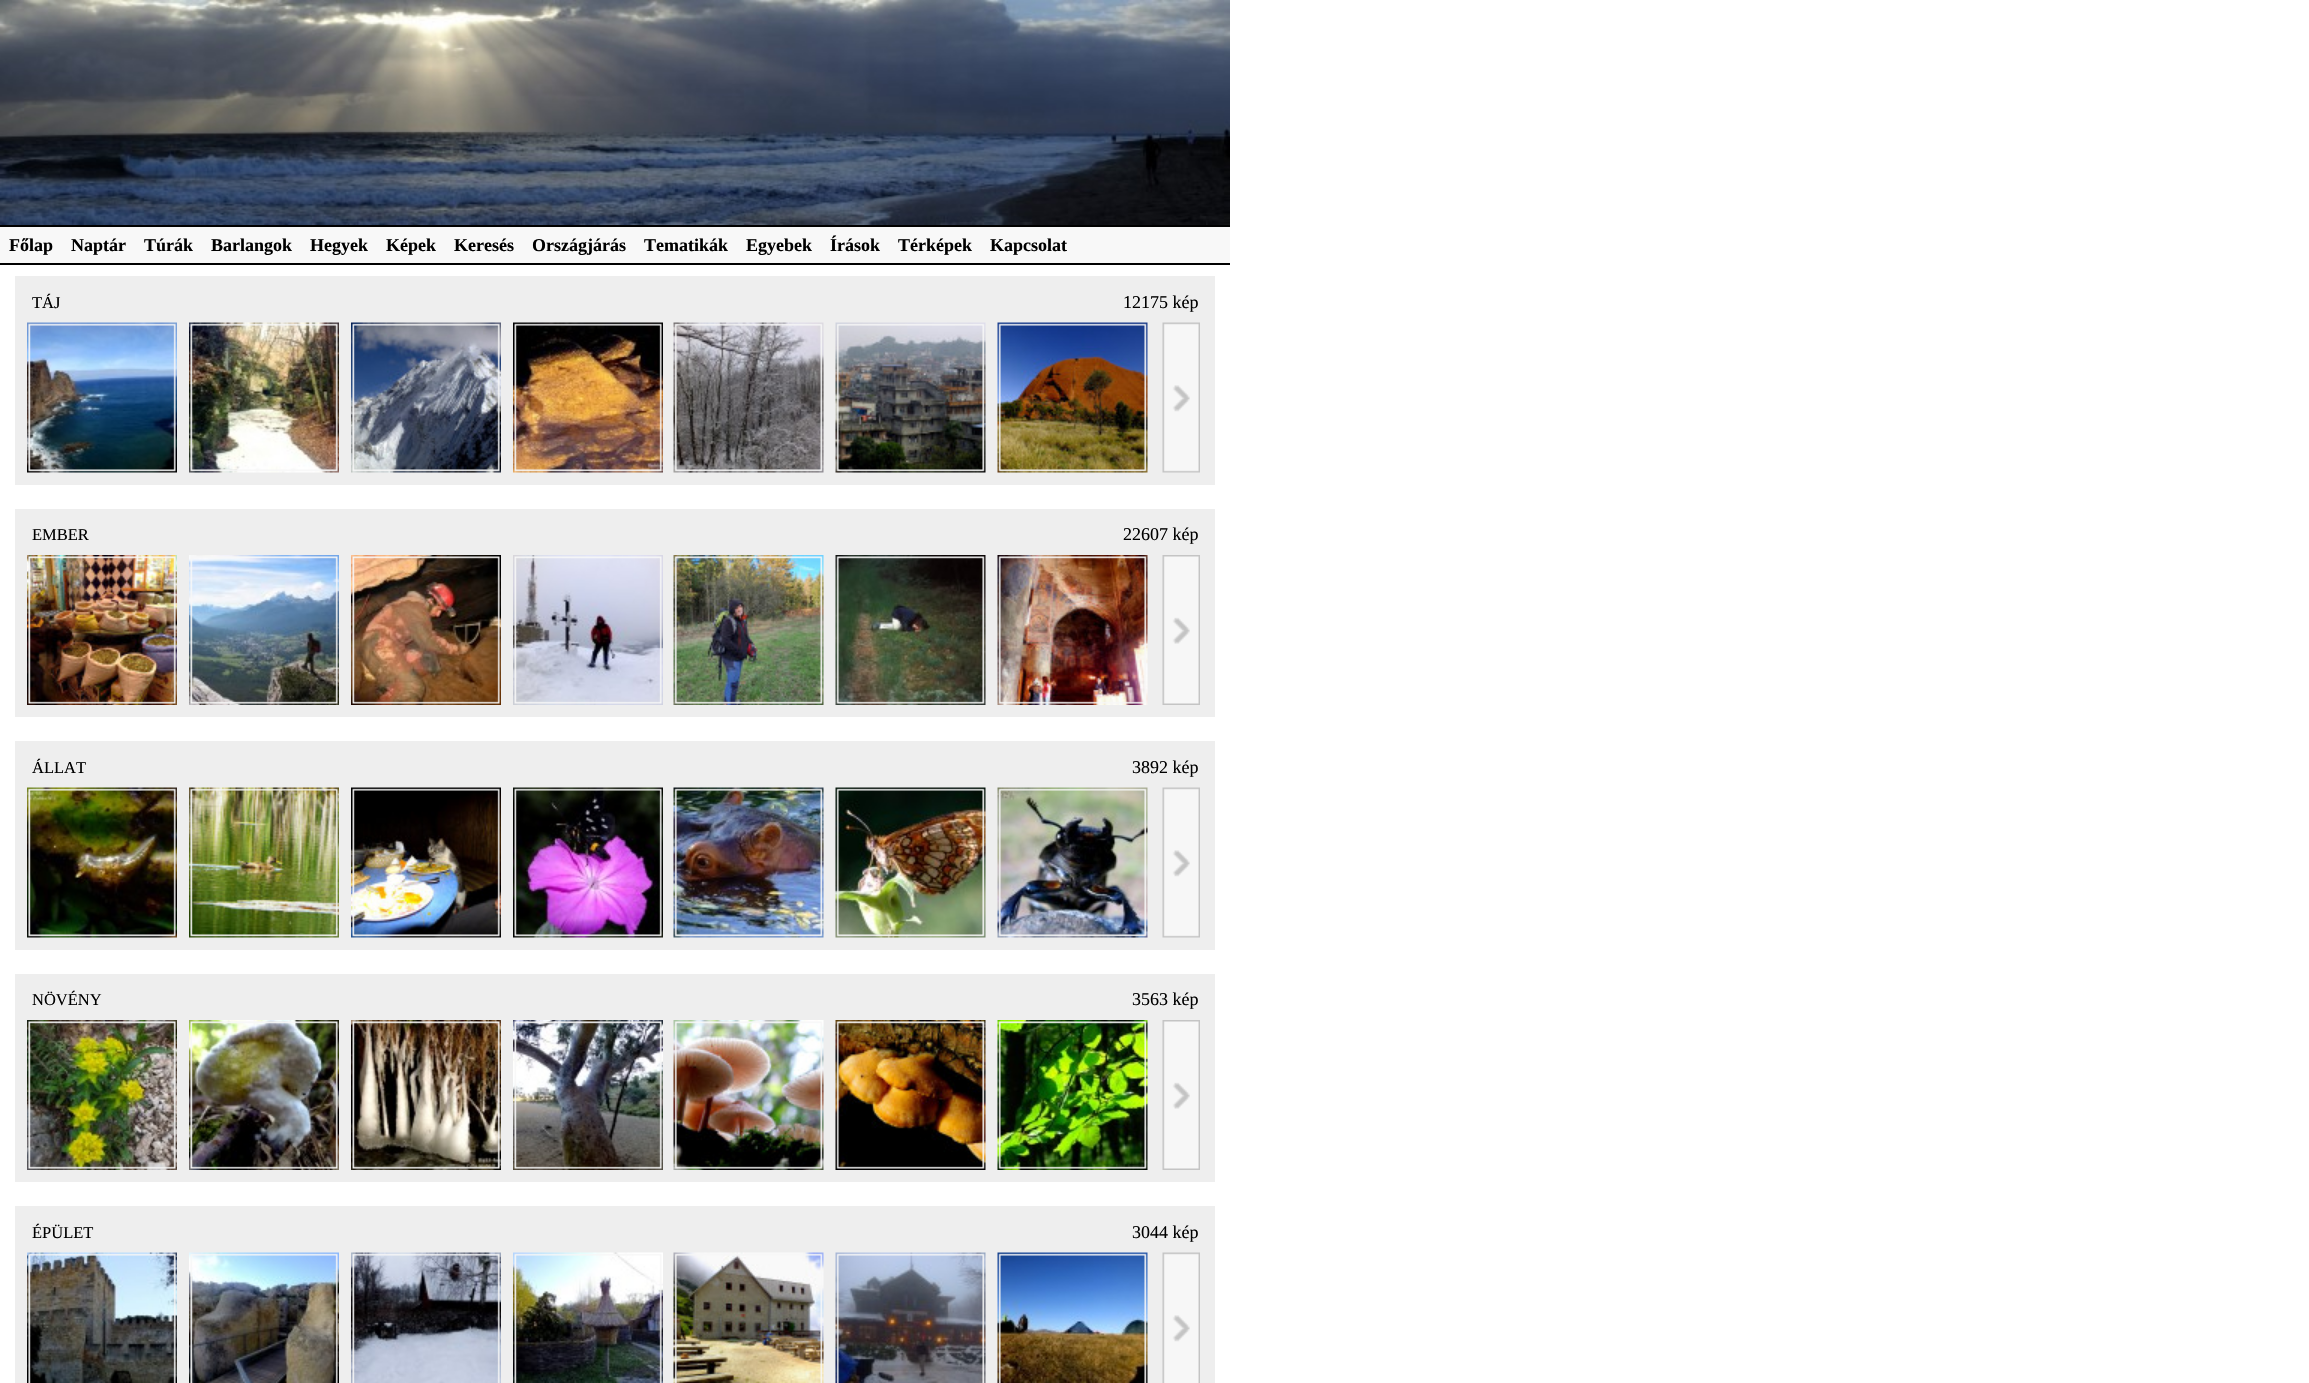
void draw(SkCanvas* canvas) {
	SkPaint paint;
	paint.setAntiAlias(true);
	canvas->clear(0xffffffff);
	canvas->drawImageRect(SkImages::DeferredFromEncodedData(SkData::MakeFromFileName("img1.png")), SkRect::MakeXYWH(0, 0, 1230, 225), SkSamplingOptions());
	paint.setColor(0xfff8f8f8);
	canvas->drawRect(SkRect::MakeXYWH(0, 227, 1230, 36), paint);
	paint.setColor(0xff000000);
	canvas->drawRect(SkRect::MakeXYWH(0, 225, 1230, 2), paint);
	canvas->drawRect(SkRect::MakeXYWH(0, 263, 1230, 2), paint);
	SkFont f1(fontMgr->matchFamilyStyle("Liberation Serif", SkFontStyle::Bold()), 18);
	f1.setSubpixel(true);
	canvas->drawString("Főlap", 9, 251, f1, paint);
	canvas->drawString("Naptár", 71, 251, f1, paint);
	canvas->drawString("Túrák", 144, 251, f1, paint);
	canvas->drawString("Barlangok", 211, 251, f1, paint);
	canvas->drawString("Hegyek", 310, 251, f1, paint);
	canvas->drawString("Képek", 386, 251, f1, paint);
	canvas->drawString("Keresés", 454, 251, f1, paint);
	canvas->drawString("Országjárás", 532, 251, f1, paint);
	canvas->drawString("Tematikák", 644, 251, f1, paint);
	canvas->drawString("Egyebek", 746, 251, f1, paint);
	canvas->drawString("Írások", 830, 251, f1, paint);
	canvas->drawString("Térképek", 898, 251, f1, paint);
	canvas->drawString("Kapcsolat", 990, 251, f1, paint);
	paint.setColor(0xffeeeeee);
	canvas->drawRect(SkRect::MakeXYWH(15, 276, 1200, 209), paint);
	SkFont f2(fontMgr->matchFamilyStyle("Liberation Serif", SkFontStyle::Normal()), 16.5);
	f2.setSubpixel(true);
	paint.setColor(0xff000000);
	canvas->drawString("TÁJ", 32, 308, f2, paint);
	SkFont f3(fontMgr->matchFamilyStyle("Liberation Serif", SkFontStyle::Normal()), 18);
	f3.setSubpixel(true);
	canvas->drawString("12175 kép", 1123, 308, f3, paint);
	canvas->drawImageRect(SkImages::DeferredFromEncodedData(SkData::MakeFromFileName("img2.png")), SkRect::MakeXYWH(27, 322, 150, 151), SkSamplingOptions());
	canvas->drawImageRect(SkImages::DeferredFromEncodedData(SkData::MakeFromFileName("img3.png")), SkRect::MakeXYWH(28, 323, 148, 149), SkSamplingOptions());
	canvas->drawImageRect(SkImages::DeferredFromEncodedData(SkData::MakeFromFileName("img4.png")), SkRect::MakeXYWH(189, 322, 150, 151), SkSamplingOptions());
	canvas->drawImageRect(SkImages::DeferredFromEncodedData(SkData::MakeFromFileName("img5.png")), SkRect::MakeXYWH(190, 323, 148, 149), SkSamplingOptions());
	canvas->drawImageRect(SkImages::DeferredFromEncodedData(SkData::MakeFromFileName("img6.png")), SkRect::MakeXYWH(351, 322, 150, 151), SkSamplingOptions());
	canvas->drawImageRect(SkImages::DeferredFromEncodedData(SkData::MakeFromFileName("img7.png")), SkRect::MakeXYWH(352, 323, 148, 149), SkSamplingOptions());
	canvas->drawImageRect(SkImages::DeferredFromEncodedData(SkData::MakeFromFileName("img8.png")), SkRect::MakeXYWH(513, 322, 150, 151), SkSamplingOptions());
	canvas->drawImageRect(SkImages::DeferredFromEncodedData(SkData::MakeFromFileName("img9.png")), SkRect::MakeXYWH(514, 323, 148, 149), SkSamplingOptions());
	canvas->drawImageRect(SkImages::DeferredFromEncodedData(SkData::MakeFromFileName("img10.png")), SkRect::MakeXYWH(673, 322, 151, 151), SkSamplingOptions());
	canvas->drawImageRect(SkImages::DeferredFromEncodedData(SkData::MakeFromFileName("img11.png")), SkRect::MakeXYWH(674, 323, 149, 149), SkSamplingOptions());
	canvas->drawImageRect(SkImages::DeferredFromEncodedData(SkData::MakeFromFileName("img12.png")), SkRect::MakeXYWH(835, 322, 151, 151), SkSamplingOptions());
	canvas->drawImageRect(SkImages::DeferredFromEncodedData(SkData::MakeFromFileName("img13.png")), SkRect::MakeXYWH(836, 323, 149, 149), SkSamplingOptions());
	canvas->drawImageRect(SkImages::DeferredFromEncodedData(SkData::MakeFromFileName("img14.png")), SkRect::MakeXYWH(997, 322, 151, 151), SkSamplingOptions());
	canvas->drawImageRect(SkImages::DeferredFromEncodedData(SkData::MakeFromFileName("img15.png")), SkRect::MakeXYWH(998, 323, 149, 149), SkSamplingOptions());
	canvas->drawImageRect(SkImages::DeferredFromEncodedData(SkData::MakeFromFileName("img16.png")), SkRect::MakeXYWH(1162, 322, 38, 151), SkSamplingOptions());
	paint.setColor(0xffeeeeee);
	canvas->drawRect(SkRect::MakeXYWH(15, 509, 1200, 208), paint);
	paint.setColor(0xff000000);
	canvas->drawString("EMBER", 32, 540, f2, paint);
	canvas->drawString("22607 kép", 1123, 540, f3, paint);
	canvas->drawImageRect(SkImages::DeferredFromEncodedData(SkData::MakeFromFileName("img17.png")), SkRect::MakeXYWH(27, 555, 150, 150), SkSamplingOptions());
	canvas->drawImageRect(SkImages::DeferredFromEncodedData(SkData::MakeFromFileName("img18.png")), SkRect::MakeXYWH(28, 556, 148, 148), SkSamplingOptions());
	canvas->drawImageRect(SkImages::DeferredFromEncodedData(SkData::MakeFromFileName("img19.png")), SkRect::MakeXYWH(189, 555, 150, 150), SkSamplingOptions());
	canvas->drawImageRect(SkImages::DeferredFromEncodedData(SkData::MakeFromFileName("img20.png")), SkRect::MakeXYWH(190, 556, 148, 148), SkSamplingOptions());
	canvas->drawImageRect(SkImages::DeferredFromEncodedData(SkData::MakeFromFileName("img21.png")), SkRect::MakeXYWH(351, 555, 150, 150), SkSamplingOptions());
	canvas->drawImageRect(SkImages::DeferredFromEncodedData(SkData::MakeFromFileName("img22.png")), SkRect::MakeXYWH(352, 556, 148, 148), SkSamplingOptions());
	canvas->drawImageRect(SkImages::DeferredFromEncodedData(SkData::MakeFromFileName("img23.png")), SkRect::MakeXYWH(513, 555, 150, 150), SkSamplingOptions());
	canvas->drawImageRect(SkImages::DeferredFromEncodedData(SkData::MakeFromFileName("img24.png")), SkRect::MakeXYWH(514, 556, 148, 148), SkSamplingOptions());
	canvas->drawImageRect(SkImages::DeferredFromEncodedData(SkData::MakeFromFileName("img25.png")), SkRect::MakeXYWH(673, 555, 151, 150), SkSamplingOptions());
	canvas->drawImageRect(SkImages::DeferredFromEncodedData(SkData::MakeFromFileName("img26.png")), SkRect::MakeXYWH(674, 556, 149, 148), SkSamplingOptions());
	canvas->drawImageRect(SkImages::DeferredFromEncodedData(SkData::MakeFromFileName("img27.png")), SkRect::MakeXYWH(835, 555, 151, 150), SkSamplingOptions());
	canvas->drawImageRect(SkImages::DeferredFromEncodedData(SkData::MakeFromFileName("img28.png")), SkRect::MakeXYWH(836, 556, 149, 148), SkSamplingOptions());
	canvas->drawImageRect(SkImages::DeferredFromEncodedData(SkData::MakeFromFileName("img29.png")), SkRect::MakeXYWH(997, 555, 151, 150), SkSamplingOptions());
	canvas->drawImageRect(SkImages::DeferredFromEncodedData(SkData::MakeFromFileName("img30.png")), SkRect::MakeXYWH(998, 556, 149, 148), SkSamplingOptions());
	canvas->drawImageRect(SkImages::DeferredFromEncodedData(SkData::MakeFromFileName("img31.png")), SkRect::MakeXYWH(1162, 555, 38, 150), SkSamplingOptions());
	paint.setColor(0xffeeeeee);
	canvas->drawRect(SkRect::MakeXYWH(15, 741, 1200, 209), paint);
	paint.setColor(0xff000000);
	canvas->drawString("ÁLLAT", 32, 773, f2, paint);
	canvas->drawString("3892 kép", 1132, 773, f3, paint);
	canvas->drawImageRect(SkImages::DeferredFromEncodedData(SkData::MakeFromFileName("img32.png")), SkRect::MakeXYWH(27, 787, 150, 151), SkSamplingOptions());
	canvas->drawImageRect(SkImages::DeferredFromEncodedData(SkData::MakeFromFileName("img33.png")), SkRect::MakeXYWH(28, 788, 148, 149), SkSamplingOptions());
	canvas->drawImageRect(SkImages::DeferredFromEncodedData(SkData::MakeFromFileName("img34.png")), SkRect::MakeXYWH(189, 787, 150, 151), SkSamplingOptions());
	canvas->drawImageRect(SkImages::DeferredFromEncodedData(SkData::MakeFromFileName("img35.png")), SkRect::MakeXYWH(190, 788, 148, 149), SkSamplingOptions());
	canvas->drawImageRect(SkImages::DeferredFromEncodedData(SkData::MakeFromFileName("img36.png")), SkRect::MakeXYWH(351, 787, 150, 151), SkSamplingOptions());
	canvas->drawImageRect(SkImages::DeferredFromEncodedData(SkData::MakeFromFileName("img37.png")), SkRect::MakeXYWH(352, 788, 148, 149), SkSamplingOptions());
	canvas->drawImageRect(SkImages::DeferredFromEncodedData(SkData::MakeFromFileName("img38.png")), SkRect::MakeXYWH(513, 787, 150, 151), SkSamplingOptions());
	canvas->drawImageRect(SkImages::DeferredFromEncodedData(SkData::MakeFromFileName("img39.png")), SkRect::MakeXYWH(514, 788, 148, 149), SkSamplingOptions());
	canvas->drawImageRect(SkImages::DeferredFromEncodedData(SkData::MakeFromFileName("img40.png")), SkRect::MakeXYWH(673, 787, 151, 151), SkSamplingOptions());
	canvas->drawImageRect(SkImages::DeferredFromEncodedData(SkData::MakeFromFileName("img41.png")), SkRect::MakeXYWH(674, 788, 149, 149), SkSamplingOptions());
	canvas->drawImageRect(SkImages::DeferredFromEncodedData(SkData::MakeFromFileName("img42.png")), SkRect::MakeXYWH(835, 787, 151, 151), SkSamplingOptions());
	canvas->drawImageRect(SkImages::DeferredFromEncodedData(SkData::MakeFromFileName("img43.png")), SkRect::MakeXYWH(836, 788, 149, 149), SkSamplingOptions());
	canvas->drawImageRect(SkImages::DeferredFromEncodedData(SkData::MakeFromFileName("img44.png")), SkRect::MakeXYWH(997, 787, 151, 151), SkSamplingOptions());
	canvas->drawImageRect(SkImages::DeferredFromEncodedData(SkData::MakeFromFileName("img45.png")), SkRect::MakeXYWH(998, 788, 149, 149), SkSamplingOptions());
	canvas->drawImageRect(SkImages::DeferredFromEncodedData(SkData::MakeFromFileName("img16.png")), SkRect::MakeXYWH(1162, 787, 38, 151), SkSamplingOptions());
	paint.setColor(0xffeeeeee);
	canvas->drawRect(SkRect::MakeXYWH(15, 974, 1200, 208), paint);
	paint.setColor(0xff000000);
	canvas->drawString("NÖVÉNY", 32, 1005, f2, paint);
	canvas->drawString("3563 kép", 1132, 1005, f3, paint);
	canvas->drawImageRect(SkImages::DeferredFromEncodedData(SkData::MakeFromFileName("img46.png")), SkRect::MakeXYWH(27, 1020, 150, 150), SkSamplingOptions());
	canvas->drawImageRect(SkImages::DeferredFromEncodedData(SkData::MakeFromFileName("img47.png")), SkRect::MakeXYWH(28, 1021, 148, 148), SkSamplingOptions());
	canvas->drawImageRect(SkImages::DeferredFromEncodedData(SkData::MakeFromFileName("img48.png")), SkRect::MakeXYWH(189, 1020, 150, 150), SkSamplingOptions());
	canvas->drawImageRect(SkImages::DeferredFromEncodedData(SkData::MakeFromFileName("img49.png")), SkRect::MakeXYWH(190, 1021, 148, 148), SkSamplingOptions());
	canvas->drawImageRect(SkImages::DeferredFromEncodedData(SkData::MakeFromFileName("img50.png")), SkRect::MakeXYWH(351, 1020, 150, 150), SkSamplingOptions());
	canvas->drawImageRect(SkImages::DeferredFromEncodedData(SkData::MakeFromFileName("img51.png")), SkRect::MakeXYWH(352, 1021, 148, 148), SkSamplingOptions());
	canvas->drawImageRect(SkImages::DeferredFromEncodedData(SkData::MakeFromFileName("img52.png")), SkRect::MakeXYWH(513, 1020, 150, 150), SkSamplingOptions());
	canvas->drawImageRect(SkImages::DeferredFromEncodedData(SkData::MakeFromFileName("img53.png")), SkRect::MakeXYWH(514, 1021, 148, 148), SkSamplingOptions());
	canvas->drawImageRect(SkImages::DeferredFromEncodedData(SkData::MakeFromFileName("img54.png")), SkRect::MakeXYWH(673, 1020, 151, 150), SkSamplingOptions());
	canvas->drawImageRect(SkImages::DeferredFromEncodedData(SkData::MakeFromFileName("img55.png")), SkRect::MakeXYWH(674, 1021, 149, 148), SkSamplingOptions());
	canvas->drawImageRect(SkImages::DeferredFromEncodedData(SkData::MakeFromFileName("img56.png")), SkRect::MakeXYWH(835, 1020, 151, 150), SkSamplingOptions());
	canvas->drawImageRect(SkImages::DeferredFromEncodedData(SkData::MakeFromFileName("img57.png")), SkRect::MakeXYWH(836, 1021, 149, 148), SkSamplingOptions());
	canvas->drawImageRect(SkImages::DeferredFromEncodedData(SkData::MakeFromFileName("img58.png")), SkRect::MakeXYWH(997, 1020, 151, 150), SkSamplingOptions());
	canvas->drawImageRect(SkImages::DeferredFromEncodedData(SkData::MakeFromFileName("img59.png")), SkRect::MakeXYWH(998, 1021, 149, 148), SkSamplingOptions());
	canvas->drawImageRect(SkImages::DeferredFromEncodedData(SkData::MakeFromFileName("img31.png")), SkRect::MakeXYWH(1162, 1020, 38, 150), SkSamplingOptions());
	paint.setColor(0xffeeeeee);
	canvas->drawRect(SkRect::MakeXYWH(15, 1206, 1200, 177), paint);
	paint.setColor(0xff000000);
	canvas->drawString("ÉPÜLET", 32, 1238, f2, paint);
	canvas->drawString("3044 kép", 1132, 1238, f3, paint);
	canvas->drawImageRect(SkImages::DeferredFromEncodedData(SkData::MakeFromFileName("img60.png")), SkRect::MakeXYWH(27, 1252, 150, 131), SkSamplingOptions());
	canvas->drawImageRect(SkImages::DeferredFromEncodedData(SkData::MakeFromFileName("img61.png")), SkRect::MakeXYWH(28, 1253, 148, 130), SkSamplingOptions());
	canvas->drawImageRect(SkImages::DeferredFromEncodedData(SkData::MakeFromFileName("img62.png")), SkRect::MakeXYWH(189, 1252, 150, 131), SkSamplingOptions());
	canvas->drawImageRect(SkImages::DeferredFromEncodedData(SkData::MakeFromFileName("img63.png")), SkRect::MakeXYWH(190, 1253, 148, 130), SkSamplingOptions());
	canvas->drawImageRect(SkImages::DeferredFromEncodedData(SkData::MakeFromFileName("img64.png")), SkRect::MakeXYWH(351, 1252, 150, 131), SkSamplingOptions());
	canvas->drawImageRect(SkImages::DeferredFromEncodedData(SkData::MakeFromFileName("img65.png")), SkRect::MakeXYWH(352, 1253, 148, 130), SkSamplingOptions());
	canvas->drawImageRect(SkImages::DeferredFromEncodedData(SkData::MakeFromFileName("img66.png")), SkRect::MakeXYWH(513, 1252, 150, 131), SkSamplingOptions());
	canvas->drawImageRect(SkImages::DeferredFromEncodedData(SkData::MakeFromFileName("img67.png")), SkRect::MakeXYWH(514, 1253, 148, 130), SkSamplingOptions());
	canvas->drawImageRect(SkImages::DeferredFromEncodedData(SkData::MakeFromFileName("img68.png")), SkRect::MakeXYWH(673, 1252, 151, 131), SkSamplingOptions());
	canvas->drawImageRect(SkImages::DeferredFromEncodedData(SkData::MakeFromFileName("img69.png")), SkRect::MakeXYWH(674, 1253, 149, 130), SkSamplingOptions());
	canvas->drawImageRect(SkImages::DeferredFromEncodedData(SkData::MakeFromFileName("img70.png")), SkRect::MakeXYWH(835, 1252, 151, 131), SkSamplingOptions());
	canvas->drawImageRect(SkImages::DeferredFromEncodedData(SkData::MakeFromFileName("img71.png")), SkRect::MakeXYWH(836, 1253, 149, 130), SkSamplingOptions());
	canvas->drawImageRect(SkImages::DeferredFromEncodedData(SkData::MakeFromFileName("img72.png")), SkRect::MakeXYWH(997, 1252, 151, 131), SkSamplingOptions());
	canvas->drawImageRect(SkImages::DeferredFromEncodedData(SkData::MakeFromFileName("img73.png")), SkRect::MakeXYWH(998, 1253, 149, 130), SkSamplingOptions());
	canvas->drawImageRect(SkImages::DeferredFromEncodedData(SkData::MakeFromFileName("img74.png")), SkRect::MakeXYWH(1162, 1252, 38, 131), SkSamplingOptions());
}
